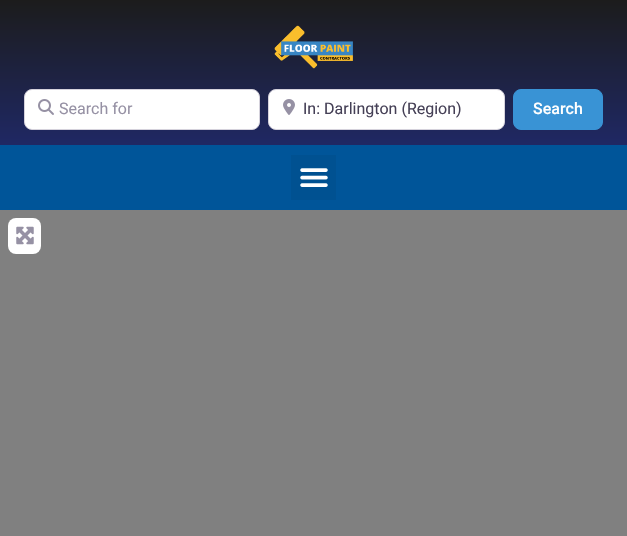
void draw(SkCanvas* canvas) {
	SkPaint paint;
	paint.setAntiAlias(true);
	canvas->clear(0xffffffff);
	{
		const SkColor colors[] = {0xff1c1c1c, 0xff1f2864};
		const float stops[] = {0, 1};
		const SkPoint ends[] = {{314, 0}, {314, 145}};
		paint.setShader(SkGradientShader::MakeLinear(ends, colors, stops, 2, SkTileMode::kClamp));
		paint.setAlpha(255);
	}
	canvas->drawRect(SkRect::MakeXYWH(0, 0, 627, 145), paint);
	canvas->drawImageRect(SkImages::DeferredFromEncodedData(SkData::MakeFromFileName("img1.png")), SkRect::MakeXYWH(274, 25, 79, 44), SkSamplingOptions());
	paint.setShader(nullptr);
	paint.setColor(0xffffffff);
	canvas->drawRoundRect(SkRect::MakeXYWH(24.5, 89.5, 235, 40), 7.5, 7.5, paint);
	paint.setStroke(true);
	paint.setStrokeWidth(1);
	paint.setColor(0xffd5d2dc);
	canvas->drawRoundRect(SkRect::MakeXYWH(24.5, 89.5, 235, 40), 7.5, 7.5, paint);
	canvas->drawImageRect(SkImages::DeferredFromEncodedData(SkData::MakeFromFileName("img2.png")), SkRect::MakeXYWH(38, 99, 16, 16), SkSamplingOptions());
	SkFont f1(fontMgr->matchFamilyStyle("Roboto", SkFontStyle::Normal()), 16);
	f1.setSubpixel(true);
	paint.setStroke(false);
	paint.setColor(0xff9691a4);
	canvas->drawString("Search for", 59, 114, f1, paint);
	paint.setColor(0xffffffff);
	canvas->drawRoundRect(SkRect::MakeXYWH(268.5, 89.5, 236, 40), 7.5, 7.5, paint);
	paint.setStroke(true);
	paint.setColor(0xffd5d2dc);
	canvas->drawRoundRect(SkRect::MakeXYWH(268.5, 89.5, 236, 40), 7.5, 7.5, paint);
	canvas->drawImageRect(SkImages::DeferredFromEncodedData(SkData::MakeFromFileName("img3.png")), SkRect::MakeXYWH(283, 99, 12, 16), SkSamplingOptions());
	paint.setStroke(false);
	paint.setColor(0xff454056);
	canvas->drawString("In: Darlington (Region)", 303, 114, f1, paint);
	paint.setColor(0xff3993d5);
	canvas->drawRoundRect(SkRect::MakeXYWH(513.5, 89.5, 89, 40), 7.5, 7.5, paint);
	paint.setStroke(true);
	canvas->drawRoundRect(SkRect::MakeXYWH(513.5, 89.5, 89, 40), 7.5, 7.5, paint);
	SkFont f2(fontMgr->matchFamilyStyle("Roboto", SkFontStyle(500, SkFontStyle::kNormal_Width, SkFontStyle::kUpright_Slant)), 16);
	f2.setSubpixel(true);
	paint.setStroke(false);
	paint.setColor(0xffffffff);
	canvas->drawString("Search", 533, 114, f2, paint);
	paint.setColor(0xff005599);
	canvas->drawRect(SkRect::MakeXYWH(0, 145, 627, 65), paint);
	paint.setColor(0xff005191);
	canvas->drawRect(SkRect::MakeXYWH(291, 155, 45, 45), paint);
	canvas->drawImageRect(SkImages::DeferredFromEncodedData(SkData::MakeFromFileName("img4.png")), SkRect::MakeXYWH(300, 168, 28, 19), SkSamplingOptions());
	paint.setColor(0xff808080);
	canvas->drawRect(SkRect::MakeXYWH(0, 210, 627, 326), paint);
	paint.setColor(0xffffffff);
	canvas->drawRoundRect(SkRect::MakeXYWH(8, 218, 33, 36), 8, 8, paint);
	canvas->drawImageRect(SkImages::DeferredFromEncodedData(SkData::MakeFromFileName("img5.png")), SkRect::MakeXYWH(16, 226, 18, 19), SkSamplingOptions());
}
